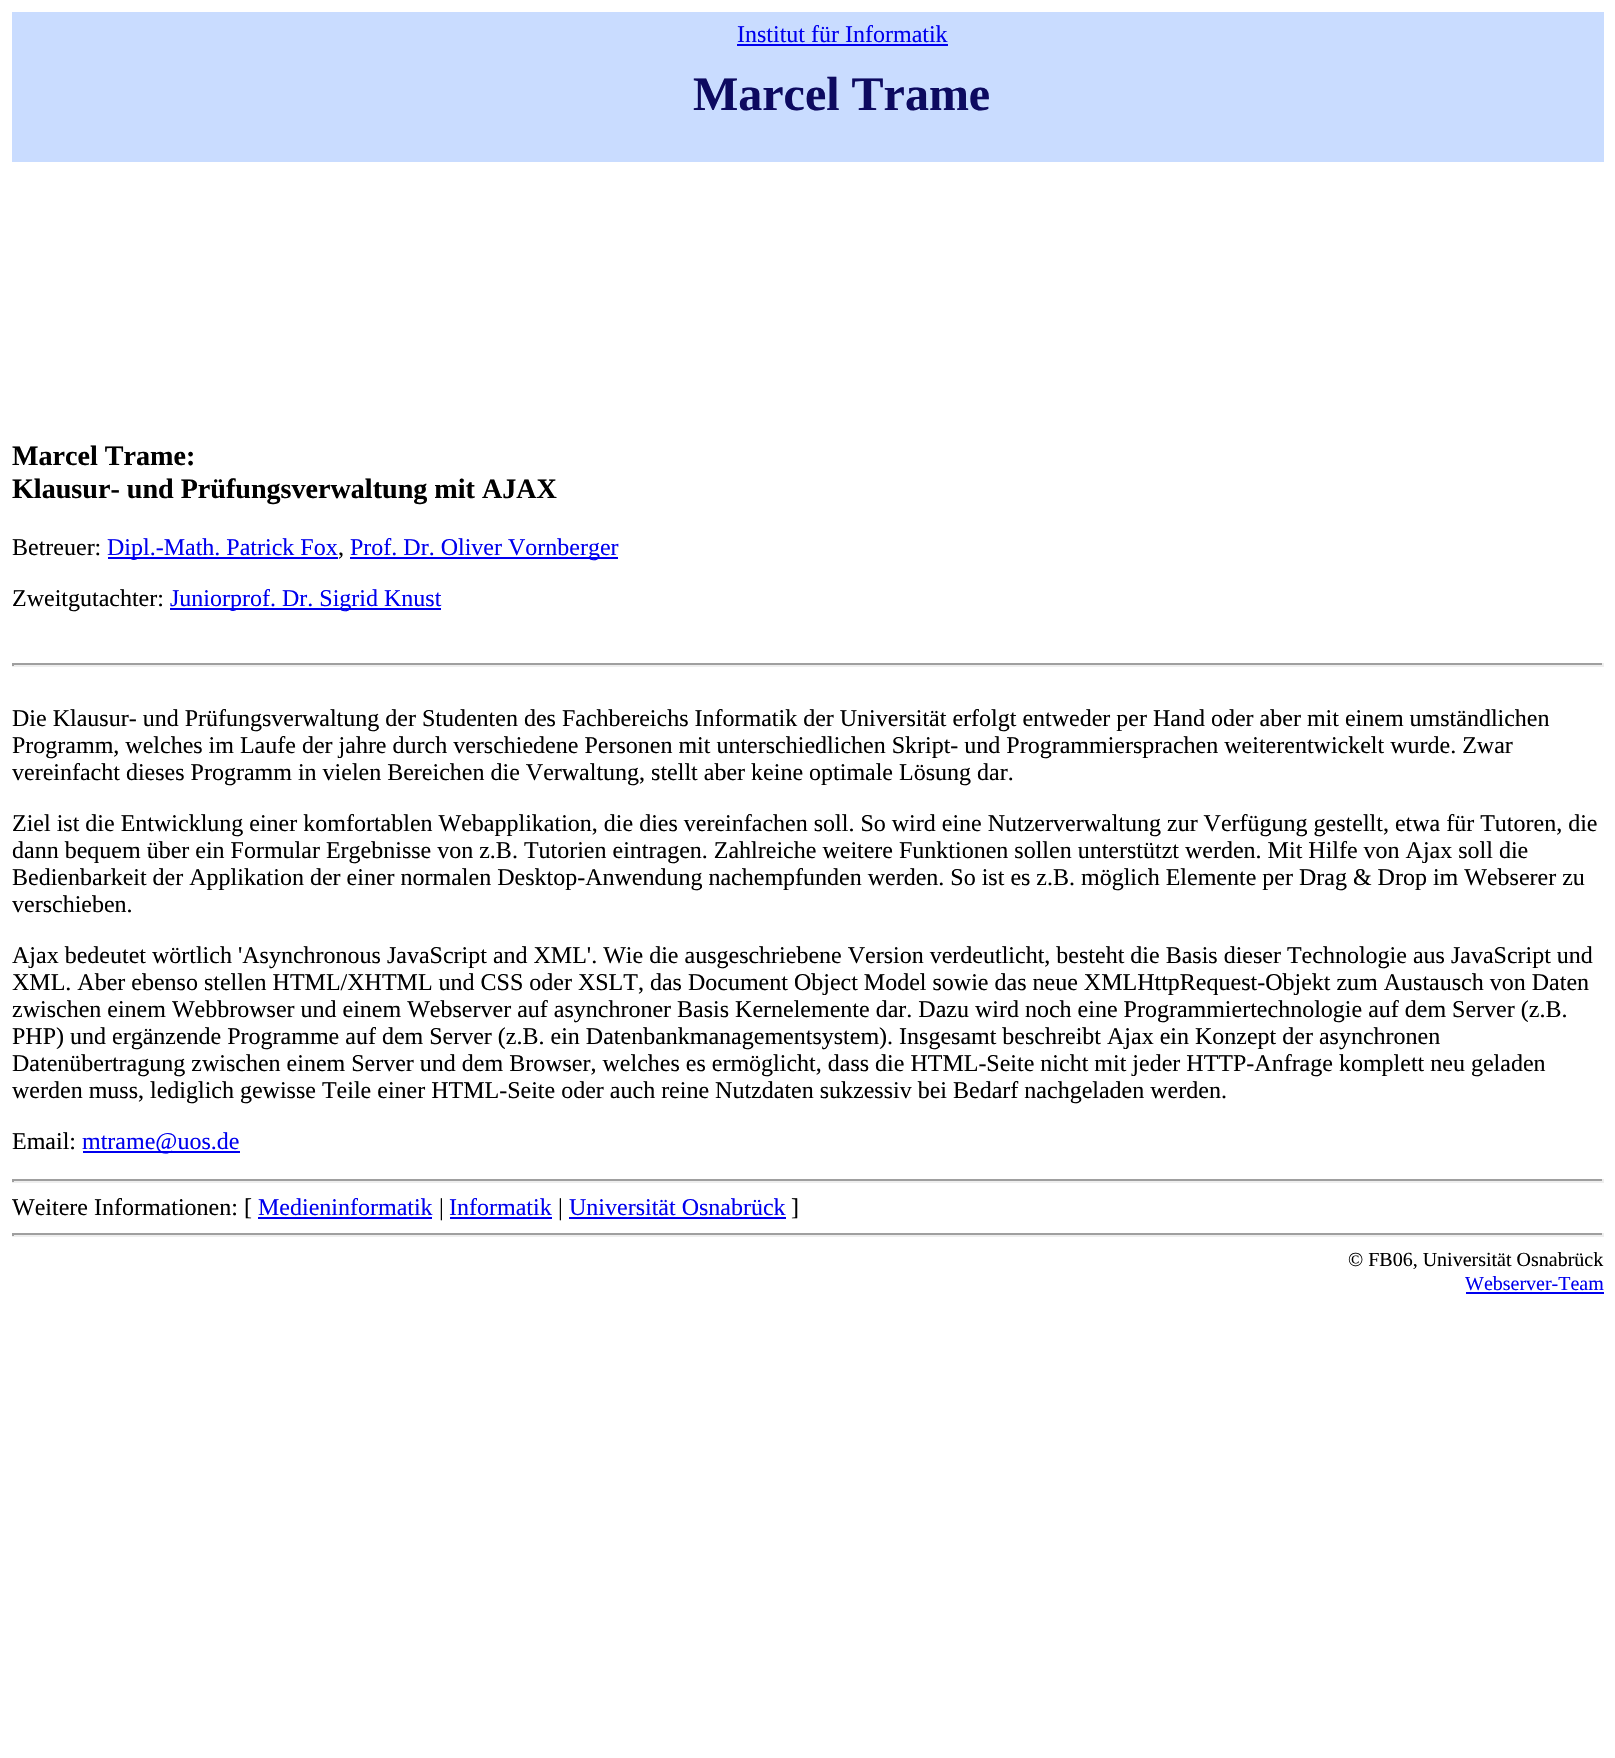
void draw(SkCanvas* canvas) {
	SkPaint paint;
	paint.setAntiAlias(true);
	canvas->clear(0xffffffff);
	paint.setColor(0xffc9dcff);
	canvas->drawRect(SkRect::MakeXYWH(12, 12, 1592, 150), paint);
	SkFont f1(fontMgr->matchFamilyStyle("Liberation Serif", SkFontStyle::Normal()), 24);
	f1.setSubpixel(true);
	paint.setColor(0xff0000ee);
	canvas->drawString("Institut für Informatik", 737, 42, f1, paint);
	canvas->drawRect(SkRect::MakeXYWH(737, 44, 211, 2), paint);
	SkFont f2(fontMgr->matchFamilyStyle("Liberation Serif", SkFontStyle::Bold()), 48);
	f2.setSubpixel(true);
	paint.setColor(0xff0d0a60);
	canvas->drawString("Marcel Trame", 693, 110, f2, paint);
	SkFont f3(fontMgr->matchFamilyStyle("Liberation Serif", SkFontStyle::Bold()), 28.1);
	f3.setSubpixel(true);
	paint.setColor(0xff000000);
	canvas->drawString("Marcel Trame:", 12, 465, f3, paint);
	canvas->drawString("Klausur- und Prüfungsverwaltung mit AJAX", 12, 498, f3, paint);
	canvas->drawString("Betreuer:", 12, 555, f1, paint);
	paint.setColor(0xff0000ee);
	canvas->drawRect(SkRect::MakeXYWH(108, 557, 230, 2), paint);
	canvas->drawString("Dipl.-Math. Patrick Fox", 107, 555, f1, paint);
	paint.setColor(0xff000000);
	canvas->drawString(",", 338, 555, f1, paint);
	paint.setColor(0xff0000ee);
	canvas->drawRect(SkRect::MakeXYWH(350, 557, 268, 2), paint);
	canvas->drawString("Prof. Dr. Oliver Vornberger", 350, 555, f1, paint);
	paint.setColor(0xff000000);
	canvas->drawString("Zweitgutachter:", 12, 606, f1, paint);
	paint.setColor(0xff0000ee);
	canvas->drawRect(SkRect::MakeXYWH(170, 608, 271, 2), paint);
	canvas->drawString("Juniorprof. Dr. Sigrid Knust", 170, 606, f1, paint);
	paint.setColor(0xff9f9f9f);
	canvas->drawRect(SkRect::MakeXYWH(12, 663, 1592, 2), paint);
	paint.setColor(0xffeeeeee);
	canvas->drawRect(SkRect::MakeXYWH(1602, 663, 2, 3), paint);
	canvas->drawRect(SkRect::MakeXYWH(12, 665, 1592, 2), paint);
	paint.setColor(0xff9f9f9f);
	canvas->drawRect(SkRect::MakeXYWH(12, 663, 2, 3), paint);
	paint.setColor(0xff000000);
	canvas->drawString("Die Klausur- und Prüfungsverwaltung der Studenten des Fachbereichs Informatik der Universität erfolgt entweder per Hand oder aber mit einem umständlichen", 12, 726, f1, paint);
	canvas->drawString("Programm, welches im Laufe der jahre durch verschiedene Personen mit unterschiedlichen Skript- und Programmiersprachen weiterentwickelt wurde. Zwar", 12, 753, f1, paint);
	canvas->drawString("vereinfacht dieses Programm in vielen Bereichen die Verwaltung, stellt aber keine optimale Lösung dar.", 12, 780, f1, paint);
	canvas->drawString("Ziel ist die Entwicklung einer komfortablen Webapplikation, die dies vereinfachen soll. So wird eine Nutzerverwaltung zur Verfügung gestellt, etwa für Tutoren, die", 12, 831, f1, paint);
	canvas->drawString("dann bequem über ein Formular Ergebnisse von z.B. Tutorien eintragen. Zahlreiche weitere Funktionen sollen unterstützt werden. Mit Hilfe von Ajax soll die", 12, 858, f1, paint);
	canvas->drawString("Bedienbarkeit der Applikation der einer normalen Desktop-Anwendung nachempfunden werden. So ist es z.B. möglich Elemente per Drag & Drop im Webserer zu", 12, 885, f1, paint);
	canvas->drawString("verschieben.", 12, 912, f1, paint);
	canvas->drawString("Ajax bedeutet wörtlich 'Asynchronous JavaScript and XML'. Wie die ausgeschriebene Version verdeutlicht, besteht die Basis dieser Technologie aus JavaScript und", 12, 963, f1, paint);
	canvas->drawString("XML. Aber ebenso stellen HTML/XHTML und CSS oder XSLT, das Document Object Model sowie das neue XMLHttpRequest-Objekt zum Austausch von Daten", 12, 990, f1, paint);
	canvas->drawString("zwischen einem Webbrowser und einem Webserver auf asynchroner Basis Kernelemente dar. Dazu wird noch eine Programmiertechnologie auf dem Server (z.B.", 12, 1017, f1, paint);
	canvas->drawString("PHP) und ergänzende Programme auf dem Server (z.B. ein Datenbankmanagementsystem). Insgesamt beschreibt Ajax ein Konzept der asynchronen", 12, 1044, f1, paint);
	canvas->drawString("Datenübertragung zwischen einem Server und dem Browser, welches es ermöglicht, dass die HTML-Seite nicht mit jeder HTTP-Anfrage komplett neu geladen", 12, 1071, f1, paint);
	canvas->drawString("werden muss, lediglich gewisse Teile einer HTML-Seite oder auch reine Nutzdaten sukzessiv bei Bedarf nachgeladen werden.", 12, 1098, f1, paint);
	canvas->drawString("Email:", 12, 1149, f1, paint);
	paint.setColor(0xff0000ee);
	canvas->drawRect(SkRect::MakeXYWH(83, 1151, 157, 2), paint);
	canvas->drawString("mtrame@uos.de", 82, 1149, f1, paint);
	paint.setColor(0xff9f9f9f);
	canvas->drawRect(SkRect::MakeXYWH(12, 1179, 1592, 2), paint);
	paint.setColor(0xffeeeeee);
	canvas->drawRect(SkRect::MakeXYWH(1602, 1179, 2, 3), paint);
	canvas->drawRect(SkRect::MakeXYWH(12, 1181, 1592, 2), paint);
	paint.setColor(0xff9f9f9f);
	canvas->drawRect(SkRect::MakeXYWH(12, 1179, 2, 3), paint);
	paint.setColor(0xff000000);
	canvas->drawString("Weitere Informationen: [", 12, 1215, f1, paint);
	paint.setColor(0xff0000ee);
	canvas->drawString("Medieninformatik", 258, 1215, f1, paint);
	canvas->drawRect(SkRect::MakeXYWH(258, 1217, 174, 2), paint);
	paint.setColor(0xff000000);
	canvas->drawString("|", 439, 1215, f1, paint);
	paint.setColor(0xff0000ee);
	canvas->drawString("Informatik", 449, 1215, f1, paint);
	canvas->drawRect(SkRect::MakeXYWH(450, 1217, 102, 2), paint);
	paint.setColor(0xff000000);
	canvas->drawString("|", 558, 1215, f1, paint);
	paint.setColor(0xff0000ee);
	canvas->drawString("Universität Osnabrück", 569, 1215, f1, paint);
	canvas->drawRect(SkRect::MakeXYWH(569, 1217, 217, 2), paint);
	paint.setColor(0xff000000);
	canvas->drawString("]", 791, 1215, f1, paint);
	paint.setColor(0xff9f9f9f);
	canvas->drawRect(SkRect::MakeXYWH(12, 1233, 1592, 2), paint);
	paint.setColor(0xffeeeeee);
	canvas->drawRect(SkRect::MakeXYWH(1602, 1233, 2, 3), paint);
	canvas->drawRect(SkRect::MakeXYWH(12, 1235, 1592, 2), paint);
	paint.setColor(0xff9f9f9f);
	canvas->drawRect(SkRect::MakeXYWH(12, 1233, 2, 3), paint);
	SkFont f4(fontMgr->matchFamilyStyle("Liberation Serif", SkFontStyle::Normal()), 20);
	f4.setSubpixel(true);
	paint.setColor(0xff000000);
	canvas->drawString("© FB06, Universität Osnabrück", 1348, 1266, f4, paint);
	paint.setColor(0xff0000ee);
	canvas->drawString("Webserver-Team", 1465, 1290, f4, paint);
	canvas->drawRect(SkRect::MakeXYWH(1466, 1292, 138, 2), paint);
}
